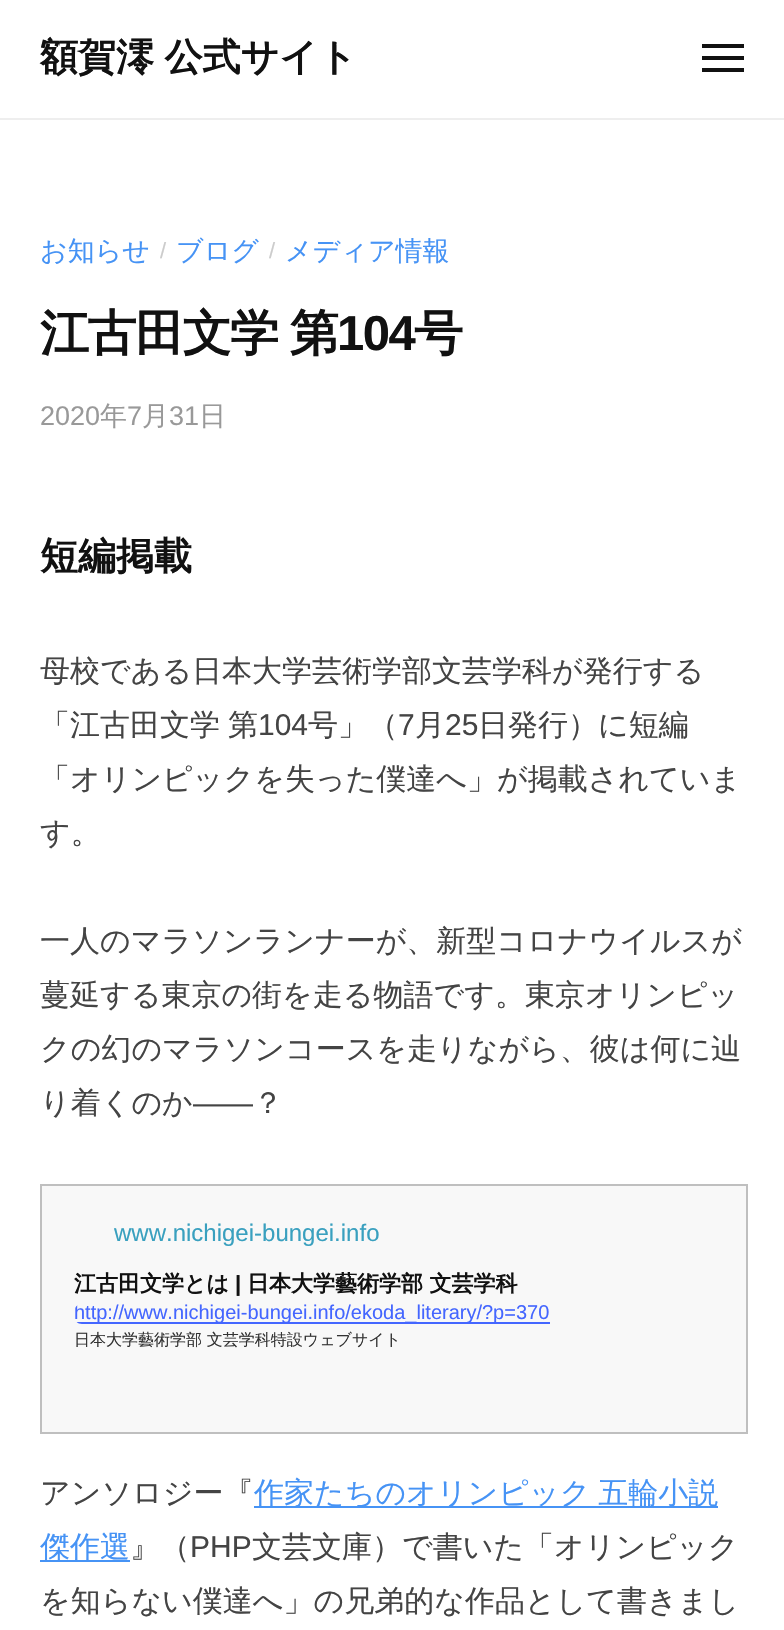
void draw(SkCanvas* canvas) {
	SkPaint paint;
	paint.setAntiAlias(true);
	auto spacedText = [&](const char* s, float x, float y, const SkFont& font, const SkPaint& ink, float letter, float word) {
		std::vector<SkGlyphID> glyphs(font.countText(s, strlen(s), SkTextEncoding::kUTF8));
		std::vector<float> xs(glyphs.size());
		font.textToGlyphs(s, strlen(s), SkTextEncoding::kUTF8, glyphs);
		font.getXPos(glyphs, xs, x);
		float extra = 0;
		for (size_t i = 0; i < glyphs.size(); i++) {
			xs[i] += extra;
			extra += letter + word * (glyphs[i] == font.unicharToGlyph(' '));
		}
		canvas->drawTextBlob(SkTextBlob::MakeFromPosHGlyphs(glyphs, xs, y, font), 0, 0, ink);
	};
	auto svgPath = [&](const char* data, bool evenOdd = false) {
		SkPath result = *SkParsePath::FromSVGString(data);
		if (evenOdd) result.setFillType(SkPathFillType::kEvenOdd);
		return result;
	};
	canvas->clear(0xffffffff);
	paint.setColor(0xffeeeeee);
	canvas->drawRect(SkRect::MakeXYWH(0, 118, 784, 2), paint);
	SkFont f1(fontMgr->matchFamilyStyle("WenQuanYi Zen Hei", SkFontStyle::Bold()), 38);
	f1.setSubpixel(true);
	paint.setColor(0xff111111);
	spacedText("額賀澪 公式サイト", 40, 70, f1, paint, 0, -1);
	canvas->drawRect(SkRect::MakeXYWH(702, 56, 42, 4), paint);
	canvas->drawRect(SkRect::MakeXYWH(702, 44, 42, 4), paint);
	canvas->drawRect(SkRect::MakeXYWH(702, 68, 42, 4), paint);
	SkFont f2(fontMgr->matchFamilyStyle("WenQuanYi Zen Hei", SkFontStyle(500, SkFontStyle::kNormal_Width, SkFontStyle::kUpright_Slant)), 27);
	f2.setSubpixel(true);
	paint.setColor(0xff4693f5);
	canvas->drawString("お知らせ", 40, 260, f2, paint);
	SkFont f3(fontMgr->matchFamilyStyle("Liberation Sans", SkFontStyle::Normal()), 22);
	f3.setSubpixel(true);
	paint.setColor(0xffcccccc);
	canvas->drawString("/", 160, 258, f3, paint);
	paint.setColor(0xff4693f5);
	canvas->drawString("ブログ", 176, 260, f2, paint);
	paint.setColor(0xffcccccc);
	canvas->drawString("/", 269, 258, f3, paint);
	paint.setColor(0xff4693f5);
	canvas->drawString("メディア情報", 285, 260, f2, paint);
	SkFont f4(fontMgr->matchFamilyStyle("WenQuanYi Zen Hei", SkFontStyle::Bold()), 49);
	f4.setSubpixel(true);
	paint.setColor(0xff111111);
	spacedText("江古田文学 第", 40, 350, f4, paint, -1.5, -1);
	SkFont f5(fontMgr->matchFamilyStyle("Liberation Sans", SkFontStyle::Bold()), 49);
	f5.setSubpixel(true);
	spacedText("104", 337, 350, f5, paint, -1.5, 0);
	spacedText("号", 414, 350, f4, paint, -1.5, 0);
	SkFont f6(fontMgr->matchFamilyStyle("Liberation Sans", SkFontStyle::Normal()), 27);
	f6.setSubpixel(true);
	paint.setColor(0xff999999);
	canvas->drawString("2020", 40, 425, f6, paint);
	canvas->drawString("年", 100, 425, f2, paint);
	canvas->drawString("7", 127, 425, f6, paint);
	canvas->drawString("月", 142, 425, f2, paint);
	canvas->drawString("31", 169, 425, f6, paint);
	canvas->drawString("日", 199, 425, f2, paint);
	paint.setColor(0xff111111);
	canvas->drawString("短編掲載", 40, 569, f1, paint);
	SkFont f7(fontMgr->matchFamilyStyle("WenQuanYi Zen Hei", SkFontStyle(500, SkFontStyle::kNormal_Width, SkFontStyle::kUpright_Slant)), 30);
	f7.setSubpixel(true);
	paint.setColor(0xff444444);
	canvas->drawString("母校である日本大学芸術学部文芸学科が発行する", 40, 681, f7, paint);
	spacedText("「江古田文学 第", 40, 735, f7, paint, 0, -1);
	SkFont f8(fontMgr->matchFamilyStyle("Liberation Sans", SkFontStyle::Normal()), 30);
	f8.setSubpixel(true);
	canvas->drawString("104", 258, 735, f8, paint);
	canvas->drawString("号」（", 308, 735, f7, paint);
	canvas->drawString("7", 398, 735, f8, paint);
	canvas->drawString("月", 415, 735, f7, paint);
	canvas->drawString("25", 445, 735, f8, paint);
	canvas->drawString("日発行）に短編", 478, 735, f7, paint);
	canvas->drawString("「オリンピックを失った僕達へ」が掲載されていま", 40, 789, f7, paint);
	canvas->drawString("す。", 40, 843, f7, paint);
	canvas->drawString("一人のマラソンランナーが、新型コロナウイルスが", 40, 951, f7, paint);
	canvas->drawString("蔓延する東京の街を走る物語です。東京オリンピッ", 40, 1005, f7, paint);
	canvas->drawString("クの幻のマラソンコースを走りながら、彼は何に辿", 40, 1059, f7, paint);
	canvas->drawString("り着くのか", 40, 1113, f7, paint);
	canvas->drawString("――", 193, 1113, f8, paint);
	canvas->drawString("？", 253, 1113, f7, paint);
	paint.setColor(0xfff8f8f8);
	canvas->drawRect(SkRect::MakeXYWH(41, 1185, 706, 248), paint);
	paint.setStroke(true);
	paint.setStrokeWidth(2);
	paint.setColor(0xffbfbfbf);
	canvas->drawRect(SkRect::MakeXYWH(41, 1185, 706, 248), paint);
	SkFont f9(fontMgr->matchFamilyStyle("Liberation Sans", SkFontStyle::Normal()), 24);
	f9.setSubpixel(true);
	paint.setStroke(false);
	paint.setColor(0xff39a0bf);
	canvas->drawString("www.nichigei-bungei.info", 114, 1241, f9, paint);
	SkFont f10(fontMgr->matchFamilyStyle("WenQuanYi Zen Hei", SkFontStyle::Bold()), 22);
	f10.setSubpixel(true);
	paint.setColor(0xff111111);
	canvas->drawString("江古田文学とは", 74, 1291, f10, paint);
	SkFont f11(fontMgr->matchFamilyStyle("Liberation Sans", SkFontStyle::Bold()), 22);
	f11.setSubpixel(true);
	canvas->drawString("|", 235, 1291, f11, paint);
	canvas->drawString("日本大学藝術学部 文芸学科", 247, 1291, f10, paint);
	canvas->save();
	canvas->clipPath(svgPath("M82 1304H566C570.5 1304 574 1307.5 574 1312V1316C574 1320.5 570.5 1324 566 1324H82C77.5 1324 74 1320.5 74 1316V1312C74 1307.5 77.5 1304 82 1304Z"), true);
	paint.setColor(0xff4466ff);
	canvas->drawRect(SkRect::MakeXYWH(74, 1322, 476, 2), paint);
	SkFont f12(fontMgr->matchFamilyStyle("Liberation Sans", SkFontStyle::Normal()), 20);
	f12.setSubpixel(true);
	canvas->drawString("http://www.nichigei-bungei.info/ekoda_literary/?p=370", 74, 1319, f12, paint);
	canvas->restore();
	SkFont f13(fontMgr->matchFamilyStyle("WenQuanYi Zen Hei", SkFontStyle(500, SkFontStyle::kNormal_Width, SkFontStyle::kUpright_Slant)), 16);
	f13.setSubpixel(true);
	paint.setColor(0xff333333);
	canvas->drawString("日本大学藝術学部 文芸学科特設ウェブサイト", 74, 1345, f13, paint);
	paint.setColor(0xff444444);
	canvas->drawString("アンソロジー『", 40, 1503, f7, paint);
	paint.setColor(0xff4693f5);
	canvas->drawRect(SkRect::MakeXYWH(254, 1506, 464, 2), paint);
	spacedText("作家たちのオリンピック 五輪小説", 254, 1503, f7, paint, 0, -1);
	canvas->drawRect(SkRect::MakeXYWH(40, 1560, 90, 2), paint);
	canvas->drawString("傑作選", 40, 1557, f7, paint);
	paint.setColor(0xff444444);
	canvas->drawString("』（", 130, 1557, f7, paint);
	canvas->drawString("PHP", 190, 1557, f8, paint);
	canvas->drawString("文芸文庫）で書いた「オリンピック", 252, 1557, f7, paint);
	canvas->drawString("を知らない僕達へ」の兄弟的な作品として書きまし", 40, 1611, f7, paint);
}
